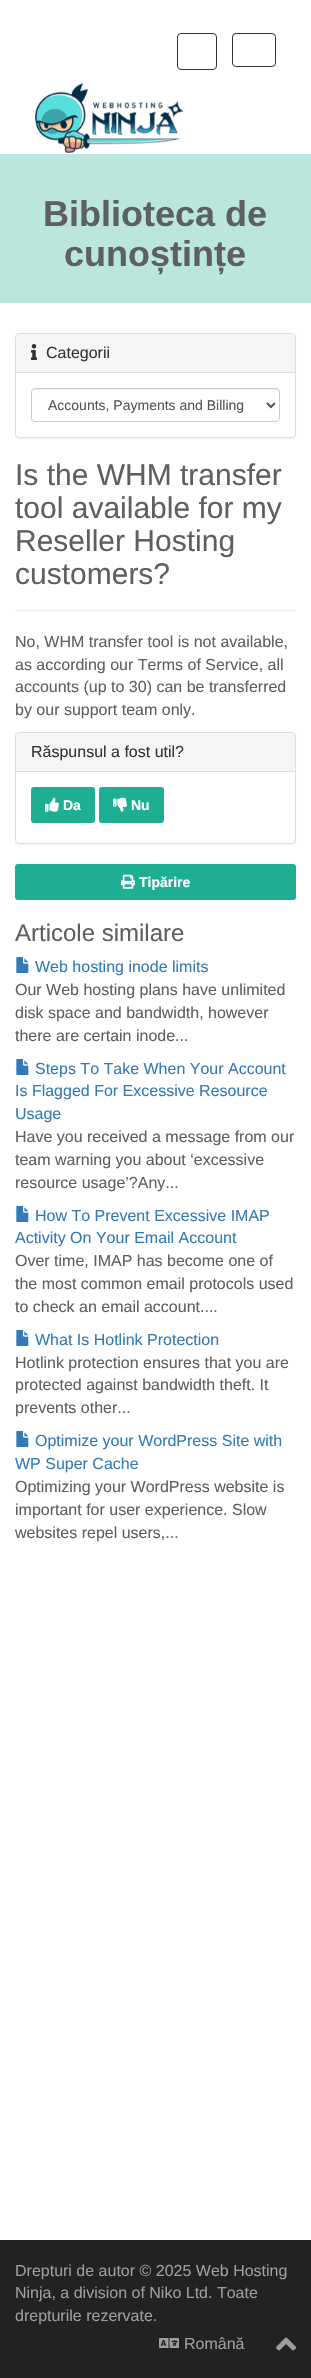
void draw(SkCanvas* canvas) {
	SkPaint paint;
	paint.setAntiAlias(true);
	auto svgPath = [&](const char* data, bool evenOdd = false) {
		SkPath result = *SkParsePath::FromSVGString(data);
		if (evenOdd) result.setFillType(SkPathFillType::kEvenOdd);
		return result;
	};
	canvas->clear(0xffffffff);
	paint.setStroke(true);
	paint.setStrokeWidth(1);
	paint.setColor(0xff333333);
	canvas->drawRoundRect(SkRect::MakeXYWH(177.5, 33.5, 39, 36), 3.5, 3.5, paint);
	canvas->drawRoundRect(SkRect::MakeXYWH(232.5, 33.5, 43, 33), 3.5, 3.5, paint);
	canvas->drawImageRect(SkImages::DeferredFromEncodedData(SkData::MakeFromFileName("img1.png")), SkRect::MakeXYWH(35, 82, 149, 71), SkSamplingOptions());
	paint.setStroke(false);
	paint.setColor(0xffbbe6de);
	canvas->drawRect(SkRect::MakeXYWH(0, 154, 311, 149), paint);
	SkFont f1(fontMgr->matchFamilyStyle("Liberation Sans", SkFontStyle::Bold()), 36);
	f1.setSubpixel(true);
	paint.setColor(0xff5d5f63);
	canvas->drawString("Biblioteca de", 43, 226, f1, paint);
	canvas->drawString("cunoștințe", 64, 266, f1, paint);
	paint.setColor(0x0d000000);
	paint.setMaskFilter(SkMaskFilter::MakeBlur(kNormal_SkBlurStyle, 0.5));
	canvas->drawRoundRect(SkRect::MakeXYWH(15, 334, 281, 105), 4, 4, paint);
	paint.setMaskFilter(nullptr);
	paint.setColor(0xffffffff);
	canvas->drawRoundRect(SkRect::MakeXYWH(15.5, 333.5, 280, 104), 3.5, 3.5, paint);
	paint.setStroke(true);
	paint.setColor(0xffdddddd);
	canvas->drawRoundRect(SkRect::MakeXYWH(15.5, 333.5, 280, 104), 3.5, 3.5, paint);
	paint.setStroke(false);
	paint.setColor(0xfff5f5f5);
	canvas->drawPath(svgPath("M19 334H292C293.5 334 295 335.5 295 337V373H16V337C16 335.5 17.5 334 19 334Z"), paint);
	paint.setColor(0xffdddddd);
	canvas->drawRect(SkRect::MakeXYWH(16, 372, 279, 1), paint);
	canvas->drawImageRect(SkImages::DeferredFromEncodedData(SkData::MakeFromFileName("img2.png")), SkRect::MakeXYWH(31, 344, 6, 16), SkSamplingOptions());
	SkFont f2(fontMgr->matchFamilyStyle("Liberation Sans", SkFontStyle::Normal()), 16);
	f2.setSubpixel(true);
	paint.setColor(0xff333333);
	canvas->drawString("Categorii", 46, 358, f2, paint);
	paint.setColor(0xffececec);
	canvas->drawPath(svgPath("M35 390H277L279 391V393C279 391 278 389 276 389H35C33 389 32 391 32 393C32 391 33 390 35 390Z"), paint);
	paint.setStroke(true);
	paint.setColor(0xffcccccc);
	canvas->drawRoundRect(SkRect::MakeXYWH(31.5, 388.5, 248, 33), 3.5, 3.5, paint);
	paint.setStrokeWidth(2);
	paint.setColor(0xff555555);
	canvas->drawPath(svgPath("M267 403L271 407L275 403"), paint);
	SkFont f3(fontMgr->matchFamilyStyle("Liberation Sans", SkFontStyle::Normal()), 14);
	f3.setSubpixel(true);
	paint.setStroke(false);
	canvas->drawString("Accounts, Payments and Billing", 48, 410, f3, paint);
	SkFont f4(fontMgr->matchFamilyStyle("Liberation Sans", SkFontStyle::Normal()), 30);
	f4.setSubpixel(true);
	paint.setColor(0xff5d5f63);
	canvas->drawString("Is the WHM transfer", 15, 485, f4, paint);
	canvas->drawString("tool available for my", 15, 518, f4, paint);
	canvas->drawString("Reseller Hosting", 15, 551, f4, paint);
	canvas->drawString("customers?", 15, 584, f4, paint);
	paint.setColor(0xffeeeeee);
	canvas->drawRect(SkRect::MakeXYWH(15, 610, 281, 1), paint);
	paint.setColor(0xff5d5f63);
	canvas->drawString("No, WHM transfer tool is not available,", 15, 647, f2, paint);
	canvas->drawString("as according our Terms of Service, all", 15, 670, f2, paint);
	canvas->drawString("accounts (up to 30) can be transferred", 15, 692, f2, paint);
	canvas->drawString("by our support team only.", 15, 715, f2, paint);
	paint.setColor(0x0d000000);
	paint.setMaskFilter(SkMaskFilter::MakeBlur(kNormal_SkBlurStyle, 0.5));
	canvas->drawRoundRect(SkRect::MakeXYWH(15, 733, 281, 112), 4, 4, paint);
	paint.setMaskFilter(nullptr);
	paint.setColor(0xffffffff);
	canvas->drawRoundRect(SkRect::MakeXYWH(15.5, 732.5, 280, 111), 3.5, 3.5, paint);
	paint.setStroke(true);
	paint.setStrokeWidth(1);
	paint.setColor(0xffdddddd);
	canvas->drawRoundRect(SkRect::MakeXYWH(15.5, 732.5, 280, 111), 3.5, 3.5, paint);
	paint.setStroke(false);
	paint.setColor(0xfff5f5f5);
	canvas->drawPath(svgPath("M19 733H292C293.5 733 295 734.5 295 736V772H16V736C16 734.5 17.5 733 19 733Z"), paint);
	paint.setColor(0xffdddddd);
	canvas->drawRect(SkRect::MakeXYWH(16, 771, 279, 1), paint);
	paint.setColor(0xff333333);
	canvas->drawString("Răspunsul a fost util?", 31, 757, f2, paint);
	paint.setColor(0xff1eae92);
	canvas->drawRoundRect(SkRect::MakeXYWH(31, 787, 64, 36), 3, 3, paint);
	canvas->drawImageRect(SkImages::DeferredFromEncodedData(SkData::MakeFromFileName("img3.png")), SkRect::MakeXYWH(45, 797, 14, 15), SkSamplingOptions());
	SkFont f5(fontMgr->matchFamilyStyle("Liberation Sans", SkFontStyle::Bold()), 14);
	f5.setSubpixel(true);
	paint.setColor(0xffffffff);
	canvas->drawString("Da", 63, 810, f5, paint);
	paint.setColor(0xff1eae92);
	canvas->drawRoundRect(SkRect::MakeXYWH(99, 787, 65, 36), 3, 3, paint);
	canvas->drawImageRect(SkImages::DeferredFromEncodedData(SkData::MakeFromFileName("img4.png")), SkRect::MakeXYWH(113, 797, 14, 15), SkSamplingOptions());
	paint.setColor(0xffffffff);
	canvas->drawString("Nu", 131, 810, f5, paint);
	paint.setColor(0xff1eae92);
	canvas->drawRoundRect(SkRect::MakeXYWH(15, 864, 281, 36), 3, 3, paint);
	canvas->drawImageRect(SkImages::DeferredFromEncodedData(SkData::MakeFromFileName("img5.png")), SkRect::MakeXYWH(121, 874, 14, 15), SkSamplingOptions());
	paint.setColor(0xffffffff);
	canvas->drawString("Tipărire", 139, 887, f5, paint);
	SkFont f6(fontMgr->matchFamilyStyle("Liberation Sans", SkFontStyle::Normal()), 24);
	f6.setSubpixel(true);
	paint.setColor(0xff5d5f63);
	canvas->drawString("Articole similare", 15, 941, f6, paint);
	canvas->drawImageRect(SkImages::DeferredFromEncodedData(SkData::MakeFromFileName("img6.png")), SkRect::MakeXYWH(16, 957, 13, 16), SkSamplingOptions());
	paint.setColor(0xff337ab7);
	canvas->drawString("Web hosting inode limits", 35, 972, f2, paint);
	paint.setColor(0xff5d5f63);
	canvas->drawString("Our Web hosting plans have unlimited", 15, 995, f2, paint);
	canvas->drawString("disk space and bandwidth, however", 15, 1018, f2, paint);
	canvas->drawString("there are certain inode...", 15, 1041, f2, paint);
	canvas->drawImageRect(SkImages::DeferredFromEncodedData(SkData::MakeFromFileName("img6.png")), SkRect::MakeXYWH(16, 1059, 13, 16), SkSamplingOptions());
	paint.setColor(0xff337ab7);
	canvas->drawString("Steps To Take When Your Account", 35, 1074, f2, paint);
	canvas->drawString("Is Flagged For Excessive Resource", 15, 1096, f2, paint);
	canvas->drawString("Usage", 15, 1119, f2, paint);
	paint.setColor(0xff5d5f63);
	canvas->drawString("Have you received a message from our", 15, 1142, f2, paint);
	canvas->drawString("team warning you about ‘excessive", 15, 1165, f2, paint);
	canvas->drawString("resource usage’?Any...", 15, 1188, f2, paint);
	canvas->drawImageRect(SkImages::DeferredFromEncodedData(SkData::MakeFromFileName("img6.png")), SkRect::MakeXYWH(16, 1206, 13, 16), SkSamplingOptions());
	paint.setColor(0xff337ab7);
	canvas->drawString("How To Prevent Excessive IMAP", 35, 1221, f2, paint);
	canvas->drawString("Activity On Your Email Account", 15, 1243, f2, paint);
	paint.setColor(0xff5d5f63);
	canvas->drawString("Over time, IMAP has become one of", 15, 1266, f2, paint);
	canvas->drawString("the most common email protocols used", 15, 1289, f2, paint);
	canvas->drawString("to check an email account....", 15, 1312, f2, paint);
	canvas->drawImageRect(SkImages::DeferredFromEncodedData(SkData::MakeFromFileName("img6.png")), SkRect::MakeXYWH(16, 1330, 13, 16), SkSamplingOptions());
	paint.setColor(0xff337ab7);
	canvas->drawString("What Is Hotlink Protection", 35, 1345, f2, paint);
	paint.setColor(0xff5d5f63);
	canvas->drawString("Hotlink protection ensures that you are", 15, 1368, f2, paint);
	canvas->drawString("protected against bandwidth theft. It", 15, 1390, f2, paint);
	canvas->drawString("prevents other...", 15, 1413, f2, paint);
	canvas->drawImageRect(SkImages::DeferredFromEncodedData(SkData::MakeFromFileName("img6.png")), SkRect::MakeXYWH(16, 1431, 13, 16), SkSamplingOptions());
	paint.setColor(0xff337ab7);
	canvas->drawString("Optimize your WordPress Site with", 35, 1446, f2, paint);
	canvas->drawString("WP Super Cache", 15, 1469, f2, paint);
	paint.setColor(0xff5d5f63);
	canvas->drawString("Optimizing your WordPress website is", 15, 1492, f2, paint);
	canvas->drawString("important for user experience. Slow", 15, 1515, f2, paint);
	canvas->drawString("websites repel users,...", 15, 1538, f2, paint);
	paint.setColor(0xff222222);
	canvas->drawRect(SkRect::MakeXYWH(0, 2240, 311, 138), paint);
	paint.setColor(0xff9d9d9d);
	canvas->drawString("Drepturi de autor © 2025 Web Hosting", 15, 2276, f2, paint);
	canvas->drawString("Ninja, a division of Niko Ltd. Toate", 15, 2298, f2, paint);
	canvas->drawString("drepturile rezervate.", 15, 2321, f2, paint);
	canvas->drawImageRect(SkImages::DeferredFromEncodedData(SkData::MakeFromFileName("img7.png")), SkRect::MakeXYWH(159, 2338, 20, 10), SkSamplingOptions());
	canvas->drawString("Română", 184, 2349, f2, paint);
	canvas->drawImageRect(SkImages::DeferredFromEncodedData(SkData::MakeFromFileName("img8.png")), SkRect::MakeXYWH(276, 2337, 20, 14), SkSamplingOptions());
}
